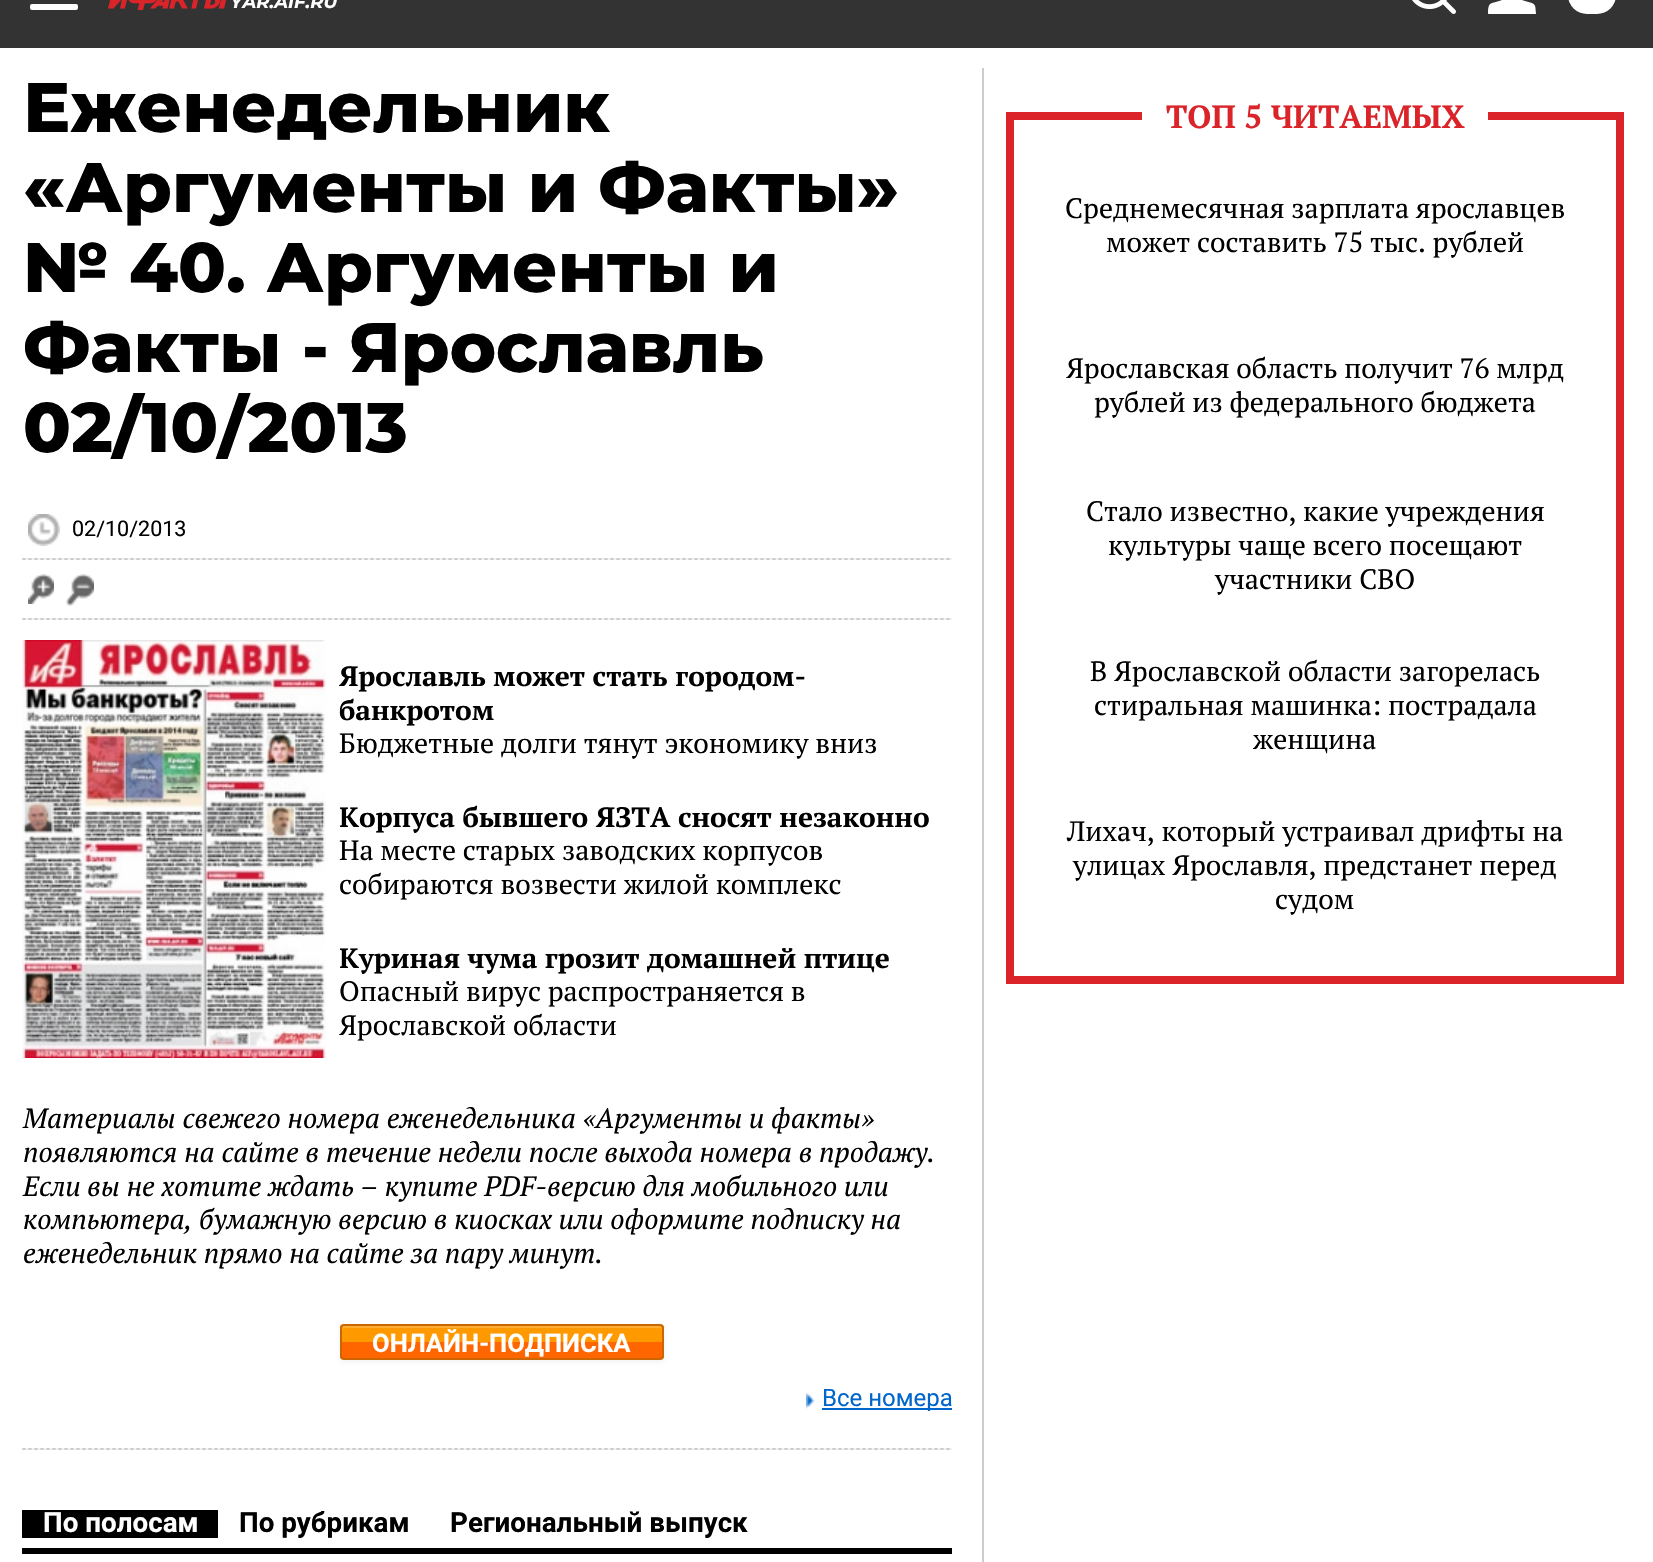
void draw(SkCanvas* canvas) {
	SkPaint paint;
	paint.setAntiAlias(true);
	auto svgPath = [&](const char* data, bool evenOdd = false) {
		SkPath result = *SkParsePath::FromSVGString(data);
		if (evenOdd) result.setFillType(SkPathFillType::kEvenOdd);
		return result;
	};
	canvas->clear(0xffffffff);
	paint.setColor(0xff333333);
	canvas->drawRect(SkRect::MakeXYWH(0, 0, 1653, 48), paint);
	paint.setColor(0xffffffff);
	canvas->drawRoundRect(SkRect::MakeXYWH(30, 4, 48, 6), 2, 2, paint);
	canvas->drawImageRect(SkImages::DeferredFromEncodedData(SkData::MakeFromFileName("img1.png")), SkRect::MakeXYWH(108, 0, 118, 10), SkSamplingOptions());
	SkFont f1(fontMgr->matchFamilyStyle("Montserrat", SkFontStyle::BoldItalic()), 18);
	f1.setSubpixel(true);
	canvas->drawString("YAR.AIF.RU", 230, 8, f1, paint);
	canvas->drawImageRect(SkImages::DeferredFromEncodedData(SkData::MakeFromFileName("img2.png")), SkRect::MakeXYWH(1412, 0, 44, 14), SkSamplingOptions());
	canvas->drawImageRect(SkImages::DeferredFromEncodedData(SkData::MakeFromFileName("img3.png")), SkRect::MakeXYWH(1488, 0, 48, 14), SkSamplingOptions());
	canvas->drawRoundRect(SkRect::MakeXYWH(1568, -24, 48, 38), 24, 24, paint);
	paint.setColor(0xffcccccc);
	canvas->drawRect(SkRect::MakeXYWH(982, 68, 2, 1494), paint);
	canvas->drawImageRect(SkImages::DeferredFromEncodedData(SkData::MakeFromFileName("img4.png")), SkRect::MakeXYWH(22, 1448, 930, 2), SkSamplingOptions());
	SkFont f2(fontMgr->matchFamilyStyle("Montserrat", SkFontStyle(800, SkFontStyle::kNormal_Width, SkFontStyle::kUpright_Slant)), 70);
	f2.setSubpixel(true);
	paint.setColor(0xff000000);
	canvas->drawString("Еженедельник", 23, 132, f2, paint);
	canvas->drawString("«Аргументы и Факты»", 23, 212, f2, paint);
	canvas->drawString("№ 40. Аргументы и", 23, 292, f2, paint);
	canvas->drawString("Факты - Ярославль", 23, 372, f2, paint);
	canvas->drawString("02/10/2013", 23, 452, f2, paint);
	canvas->drawImageRect(SkImages::DeferredFromEncodedData(SkData::MakeFromFileName("img4.png")), SkRect::MakeXYWH(22, 558, 930, 2), SkSamplingOptions());
	canvas->drawImageRect(SkImages::DeferredFromEncodedData(SkData::MakeFromFileName("img5.png")), SkRect::MakeXYWH(28, 514, 32, 32), SkSamplingOptions());
	SkFont f3(fontMgr->matchFamilyStyle("Roboto", SkFontStyle::Normal()), 21.5);
	f3.setSubpixel(true);
	canvas->drawString("02/10/2013", 72, 536, f3, paint);
	canvas->drawImageRect(SkImages::DeferredFromEncodedData(SkData::MakeFromFileName("img4.png")), SkRect::MakeXYWH(22, 618, 930, 2), SkSamplingOptions());
	canvas->drawImageRect(SkImages::DeferredFromEncodedData(SkData::MakeFromFileName("img6.png")), SkRect::MakeXYWH(28, 574, 26, 30), SkSamplingOptions());
	canvas->drawImageRect(SkImages::DeferredFromEncodedData(SkData::MakeFromFileName("img7.png")), SkRect::MakeXYWH(66, 574, 28, 32), SkSamplingOptions());
	canvas->drawImageRect(SkImages::DeferredFromEncodedData(SkData::MakeFromFileName("img8.png")), SkRect::MakeXYWH(22, 640, 304, 418), SkSamplingOptions());
	SkFont f4(fontMgr->matchFamilyStyle("PT Serif", SkFontStyle::Bold()), 28);
	f4.setSubpixel(true);
	canvas->drawString("Ярославль может стать городом-", 339, 686, f4, paint);
	canvas->drawString("банкротом", 339, 720, f4, paint);
	SkFont f5(fontMgr->matchFamilyStyle("PT Serif", SkFontStyle::Normal()), 28);
	f5.setSubpixel(true);
	canvas->drawString("Бюджетные долги тянут экономику вниз", 339, 753, f5, paint);
	canvas->save();
	canvas->clipRect(SkRect::MakeXYWH(340, 640, 612, 442));
	canvas->drawString("Корпуса бывшего ЯЗТА сносят незаконно", 339, 827, f4, paint);
	canvas->restore();
	canvas->drawString("На месте старых заводских корпусов", 339, 860, f5, paint);
	canvas->drawString("собираются возвести жилой комплекс", 339, 894, f5, paint);
	canvas->save();
	canvas->clipRect(SkRect::MakeXYWH(340, 640, 612, 442));
	canvas->drawString("Куриная чума грозит домашней птице", 339, 968, f4, paint);
	canvas->restore();
	canvas->drawString("Опасный вирус распространяется в", 339, 1001, f5, paint);
	canvas->drawString("Ярославской области", 339, 1035, f5, paint);
	SkFont f6(fontMgr->matchFamilyStyle("PT Serif", SkFontStyle::Italic()), 28);
	f6.setSubpixel(true);
	canvas->drawString("Материалы свежего номера еженедельника «Аргументы и факты»", 23, 1128, f6, paint);
	canvas->drawString("появляются на сайте в течение недели после выхода номера в продажу.", 23, 1162, f6, paint);
	canvas->drawString("Если вы не хотите ждать – купите PDF-версию для мобильного или", 23, 1196, f6, paint);
	canvas->drawString("компьютера, бумажную версию в киосках или оформите подписку на", 23, 1229, f6, paint);
	canvas->drawString("еженедельник прямо на сайте за пару минут.", 23, 1263, f6, paint);
	paint.setColor(0x0d000000);
	paint.setMaskFilter(SkMaskFilter::MakeBlur(kNormal_SkBlurStyle, 2));
	canvas->drawRoundRect(SkRect::MakeXYWH(340, 1326, 324, 36), 4, 4, paint);
	paint.setMaskFilter(nullptr);
	paint.setColor(0xffff9900);
	canvas->drawRect(SkRect::MakeXYWH(340, 1326, 324, 16), paint);
	paint.setColor(0xffff6600);
	canvas->drawRect(SkRect::MakeXYWH(340, 1342, 324, 16), paint);
	paint.setColor(0xffffad33);
	canvas->drawPath(svgPath("M344 1328H660C661 1328 662 1329 662 1330V1328C662 1327 661 1326 660 1326H344C343 1326 342 1327 342 1328V1330C342 1329 343 1328 344 1328Z"), paint);
	paint.setStroke(true);
	paint.setStrokeWidth(2);
	paint.setColor(0xffcc6600);
	canvas->drawRoundRect(SkRect::MakeXYWH(341, 1325, 322, 34), 3, 3, paint);
	SkFont f7(fontMgr->matchFamilyStyle("Roboto", SkFontStyle::Bold()), 25.6);
	f7.setSubpixel(true);
	paint.setStroke(false);
	paint.setColor(0xffffffff);
	canvas->drawString("ОНЛАЙН-ПОДПИСКА", 372, 1352, f7, paint);
	canvas->drawImageRect(SkImages::DeferredFromEncodedData(SkData::MakeFromFileName("img9.png")), SkRect::MakeXYWH(806, 1393, 9, 16), SkSamplingOptions());
	paint.setColor(0xff0066cc);
	canvas->drawRect(SkRect::MakeXYWH(822, 1408, 130, 2), paint);
	SkFont f8(fontMgr->matchFamilyStyle("Roboto", SkFontStyle::Normal()), 24);
	f8.setSubpixel(true);
	canvas->drawString("Все номера", 822, 1406, f8, paint);
	paint.setColor(0xff000000);
	canvas->drawRect(SkRect::MakeXYWH(22, 1548, 930, 6), paint);
	canvas->drawRect(SkRect::MakeXYWH(22, 1510, 196, 28), paint);
	SkFont f9(fontMgr->matchFamilyStyle("Roboto", SkFontStyle::Bold()), 27.75);
	f9.setSubpixel(true);
	paint.setColor(0xffffffff);
	canvas->drawString("По полосам", 43, 1532, f9, paint);
	paint.setColor(0xff000000);
	canvas->drawString("По рубрикам", 239, 1532, f9, paint);
	canvas->drawString("Региональный выпуск", 450, 1532, f9, paint);
	paint.setColor(0xffda2429);
	canvas->drawRect(SkRect::MakeXYWH(1616, 112, 8, 872), paint);
	canvas->drawRect(SkRect::MakeXYWH(1006, 976, 618, 8), paint);
	canvas->drawRect(SkRect::MakeXYWH(1006, 112, 8, 872), paint);
	canvas->drawRect(SkRect::MakeXYWH(1006, 112, 136, 8), paint);
	SkFont f10(fontMgr->matchFamilyStyle("PT Serif", SkFontStyle::Bold()), 32);
	f10.setSubpixel(true);
	canvas->drawString("ТОП 5 ЧИТАЕМЫХ", 1166, 128, f10, paint);
	canvas->drawRect(SkRect::MakeXYWH(1488, 112, 136, 8), paint);
	paint.setColor(0xff000000);
	canvas->drawString("Среднемесячная зарплата ярославцев", 1065, 218, f5, paint);
	canvas->drawString("может составить 75 тыс. рублей", 1106, 252, f5, paint);
	canvas->drawString("Ярославская область получит 76 млрд", 1066, 378, f5, paint);
	canvas->drawString("рублей из федерального бюджета", 1094, 412, f5, paint);
	canvas->drawString("Стало известно, какие учреждения", 1086, 521, f5, paint);
	canvas->drawString("культуры чаще всего посещают", 1108, 555, f5, paint);
	canvas->drawString("участники СВО", 1215, 589, f5, paint);
	canvas->drawString("В Ярославской области загорелась", 1090, 681, f5, paint);
	canvas->drawString("стиральная машинка: пострадала", 1094, 715, f5, paint);
	canvas->drawString("женщина", 1253, 749, f5, paint);
	canvas->drawString("Лихач, который устраивал дрифты на", 1067, 841, f5, paint);
	canvas->drawString("улицах Ярославля, предстанет перед", 1073, 875, f5, paint);
	canvas->drawString("судом", 1275, 909, f5, paint);
}
